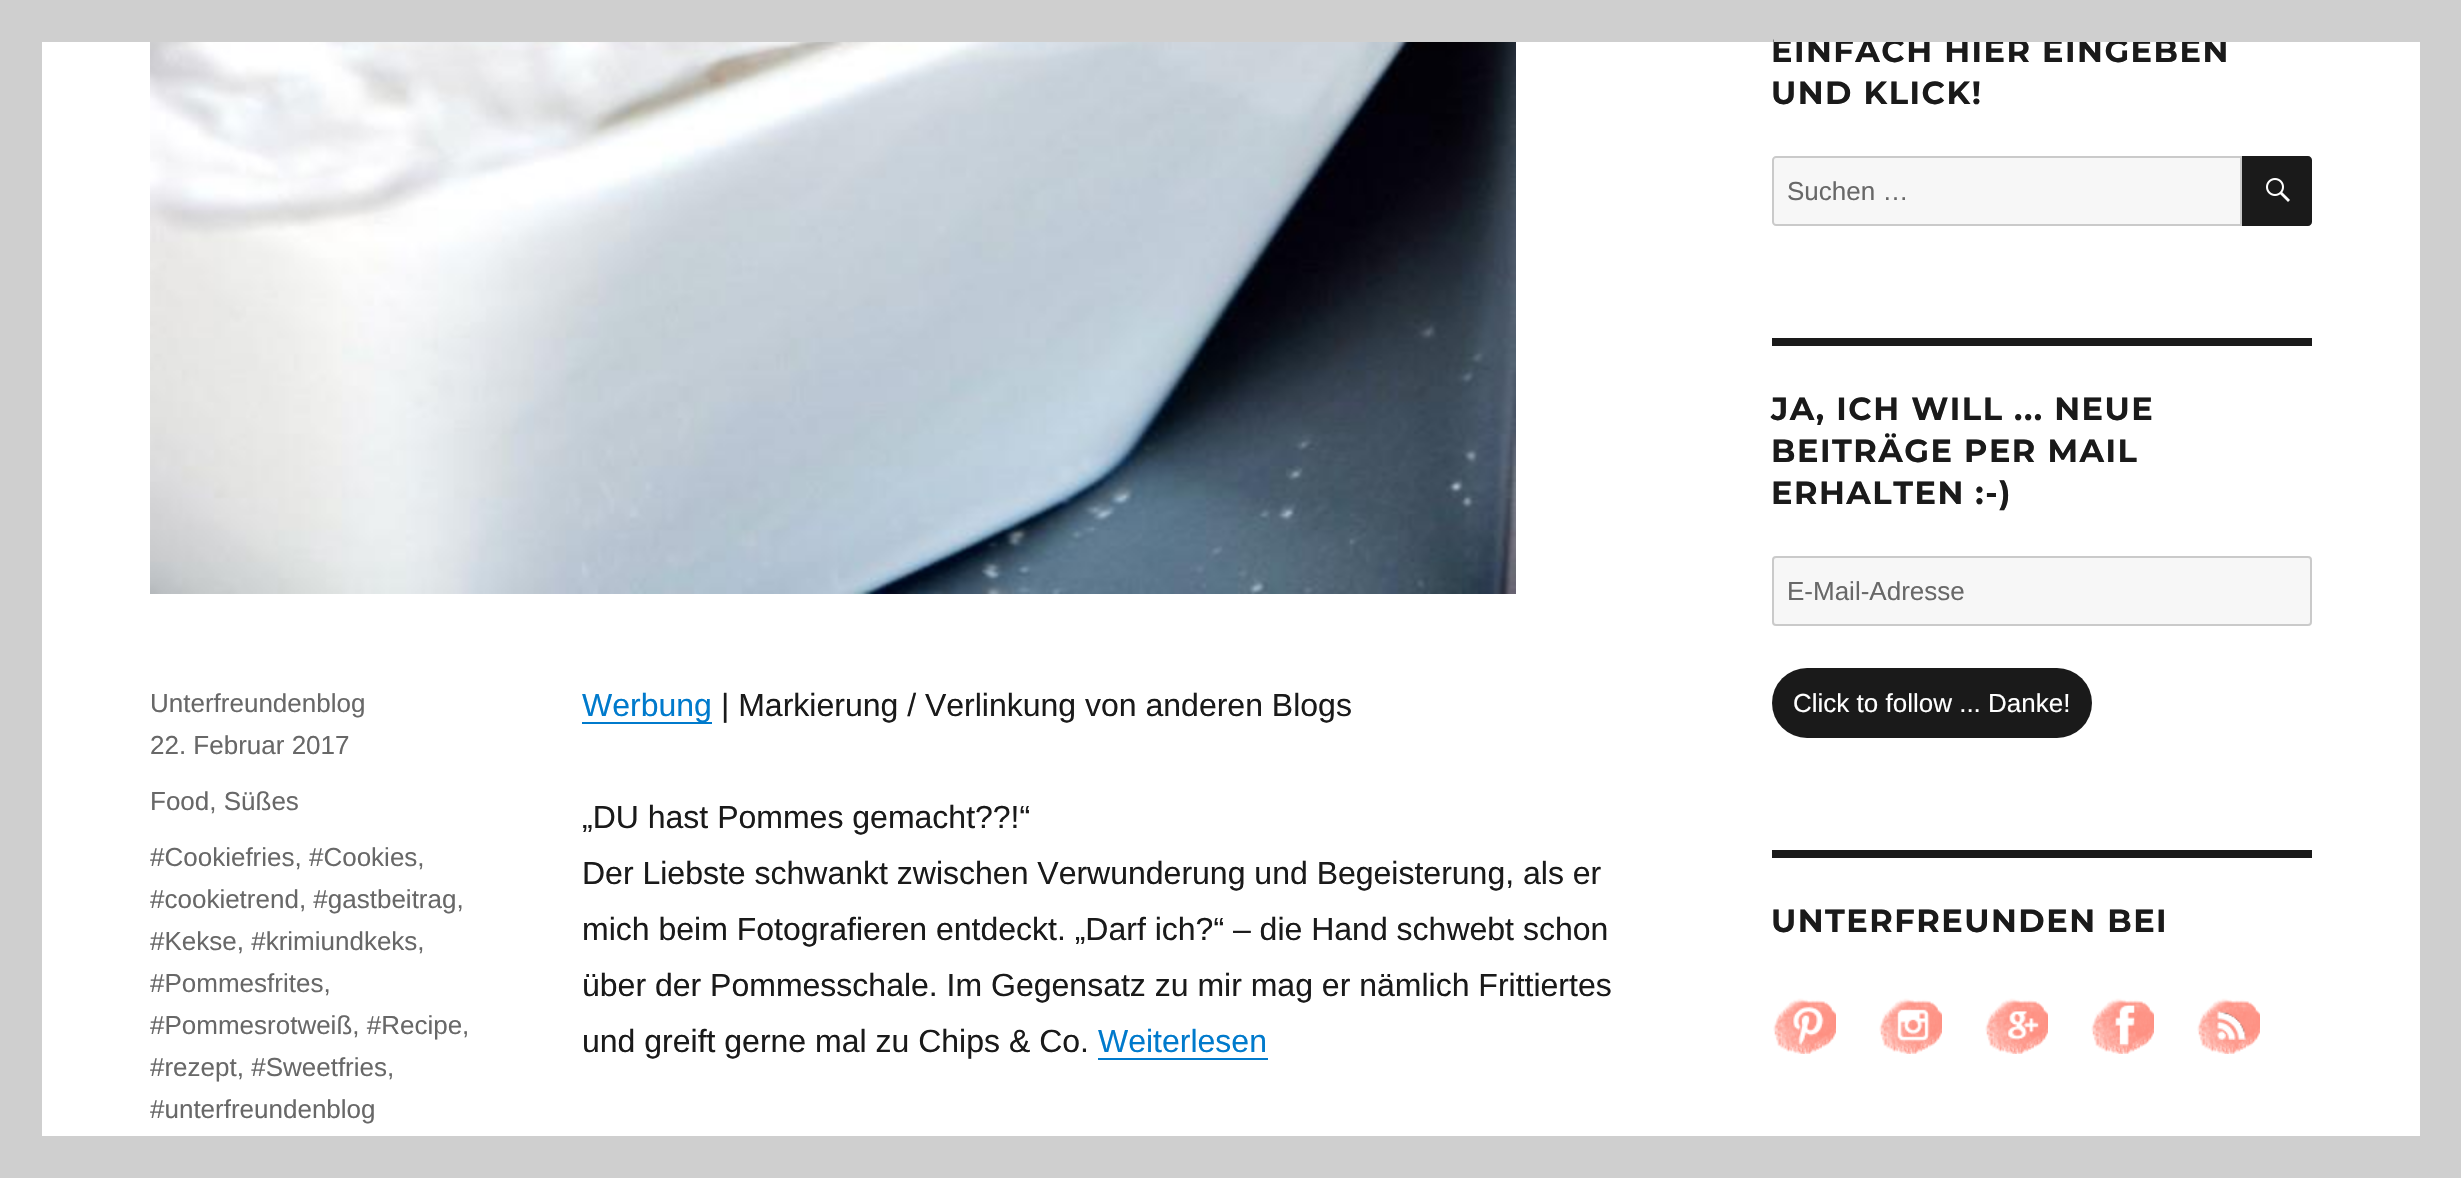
void draw(SkCanvas* canvas) {
	SkPaint paint;
	paint.setAntiAlias(true);
	auto spacedText = [&](const char* s, float x, float y, const SkFont& font, const SkPaint& ink, float letter, float word) {
		std::vector<SkGlyphID> glyphs(font.countText(s, strlen(s), SkTextEncoding::kUTF8));
		std::vector<float> xs(glyphs.size());
		font.textToGlyphs(s, strlen(s), SkTextEncoding::kUTF8, glyphs);
		font.getXPos(glyphs, xs, x);
		float extra = 0;
		for (size_t i = 0; i < glyphs.size(); i++) {
			xs[i] += extra;
			extra += letter + word * (glyphs[i] == font.unicharToGlyph(' '));
		}
		canvas->drawTextBlob(SkTextBlob::MakeFromPosHGlyphs(glyphs, xs, y, font), 0, 0, ink);
	};
	auto svgPath = [&](const char* data, bool evenOdd = false) {
		SkPath result = *SkParsePath::FromSVGString(data);
		if (evenOdd) result.setFillType(SkPathFillType::kEvenOdd);
		return result;
	};
	canvas->clear(0xffcfcfcf);
	paint.setColor(0xffffffff);
	canvas->drawRect(SkRect::MakeXYWH(42, 42, 2378, 1094), paint);
	canvas->drawImageRect(SkImages::DeferredFromEncodedData(SkData::MakeFromFileName("img1.png")), SkRect::MakeXYWH(150, 42, 1366, 552), SkSamplingOptions());
	SkFont f1(fontMgr->matchFamilyStyle("Arimo", SkFontStyle::Normal()), 26);
	f1.setSubpixel(true);
	paint.setColor(0xff686868);
	canvas->drawString("Unterfreundenblog", 150, 712, f1, paint);
	canvas->drawString("22. Februar 2017", 150, 754, f1, paint);
	canvas->drawString("Food, Süßes", 150, 810, f1, paint);
	canvas->drawString("#Cookiefries, #Cookies,", 150, 866, f1, paint);
	canvas->drawString("#cookietrend, #gastbeitrag,", 150, 908, f1, paint);
	canvas->drawString("#Kekse, #krimiundkeks,", 150, 950, f1, paint);
	canvas->drawString("#Pommesfrites,", 150, 992, f1, paint);
	canvas->drawString("#Pommesrotweiß, #Recipe,", 150, 1034, f1, paint);
	canvas->drawString("#rezept, #Sweetfries,", 150, 1076, f1, paint);
	canvas->drawString("#unterfreundenblog", 150, 1118, f1, paint);
	paint.setColor(0xff007acc);
	canvas->drawRect(SkRect::MakeXYWH(582, 722, 130, 2), paint);
	SkFont f2(fontMgr->matchFamilyStyle("Arimo", SkFontStyle::Normal()), 32);
	f2.setSubpixel(true);
	canvas->drawString("Werbung", 582, 716, f2, paint);
	paint.setColor(0xff1a1a1a);
	canvas->drawString("| Markierung / Verlinkung von anderen Blogs", 721, 716, f2, paint);
	canvas->drawString("„DU hast Pommes gemacht?\077!“", 582, 828, f2, paint);
	canvas->drawString("Der Liebste schwankt zwischen Verwunderung und Begeisterung, als er", 582, 884, f2, paint);
	canvas->drawString("mich beim Fotografieren entdeckt. „Darf ich?“ – die Hand schwebt schon", 582, 940, f2, paint);
	canvas->drawString("über der Pommesschale. Im Gegensatz zu mir mag er nämlich Frittiertes", 582, 996, f2, paint);
	canvas->drawString("und greift gerne mal zu Chips & Co.", 582, 1052, f2, paint);
	paint.setColor(0xff007acc);
	canvas->drawString("Weiterlesen", 1098, 1052, f2, paint);
	canvas->drawRect(SkRect::MakeXYWH(1098, 1058, 170, 2), paint);
	SkFont f3(fontMgr->matchFamilyStyle("Montserrat", SkFontStyle(100, SkFontStyle::kNormal_Width, SkFontStyle::kUpright_Slant)), 32);
	f3.setSubpixel(true);
	paint.setColor(0xff1a1a1a);
	spacedText("EINFACH HIER EINGEBEN", 1771, 62, f3, paint, 1.5, 0);
	spacedText("UND KLICK!", 1771, 104, f3, paint, 1.5, 0);
	paint.setColor(0xfff7f7f7);
	canvas->drawPath(svgPath("M1776 156H2242V226H1776C1774 226 1772 224 1772 222V160C1772 158 1774 156 1776 156Z"), paint);
	paint.setStroke(true);
	paint.setStrokeWidth(2);
	paint.setColor(0x331a1a1a);
	canvas->drawPath(svgPath("M1776 157H2241V225H1776C1774.5 225 1773 223.5 1773 222V160C1773 158.5 1774.5 157 1776 157Z"), paint);
	paint.setStroke(false);
	paint.setColor(0xff686868);
	canvas->drawString("Suchen …", 1787, 200, f1, paint);
	paint.setColor(0xff1a1a1a);
	canvas->drawPath(svgPath("M2242 156H2308C2310 156 2312 158 2312 160V222C2312 224 2310 226 2308 226H2242Z"), paint);
	canvas->drawImageRect(SkImages::DeferredFromEncodedData(SkData::MakeFromFileName("img2.png")), SkRect::MakeXYWH(2266, 178, 24, 24), SkSamplingOptions());
	canvas->drawRect(SkRect::MakeXYWH(1772, 338, 540, 8), paint);
	spacedText("JA, ICH WILL ... NEUE", 1771, 420, f3, paint, 1.5, 0);
	spacedText("BEITRÄGE PER MAIL", 1771, 462, f3, paint, 1.5, 0);
	spacedText("ERHALTEN :-)", 1771, 504, f3, paint, 1.5, 0);
	paint.setColor(0xfff7f7f7);
	canvas->drawRoundRect(SkRect::MakeXYWH(1772, 556, 540, 70), 4, 4, paint);
	paint.setStroke(true);
	paint.setColor(0x331a1a1a);
	canvas->drawRoundRect(SkRect::MakeXYWH(1773, 557, 538, 68), 3, 3, paint);
	paint.setStroke(false);
	paint.setColor(0xff686868);
	canvas->drawString("E-Mail-Adresse", 1787, 600, f1, paint);
	paint.setColor(0xff1a1a1a);
	canvas->drawRoundRect(SkRect::MakeXYWH(1772, 668, 320, 70), 35, 35, paint);
	paint.setColor(0xffffffff);
	canvas->drawString("Click to follow ... Danke!", 1793, 712, f1, paint);
	paint.setColor(0xff1a1a1a);
	canvas->drawRect(SkRect::MakeXYWH(1772, 850, 540, 8), paint);
	spacedText("UNTERFREUNDEN BEI", 1771, 932, f3, paint, 1.5, 0);
	canvas->drawImageRect(SkImages::DeferredFromEncodedData(SkData::MakeFromFileName("img3.png")), SkRect::MakeXYWH(1773, 998, 63, 56), SkSamplingOptions());
	canvas->drawImageRect(SkImages::DeferredFromEncodedData(SkData::MakeFromFileName("img4.png")), SkRect::MakeXYWH(1879, 998, 63, 56), SkSamplingOptions());
	canvas->drawImageRect(SkImages::DeferredFromEncodedData(SkData::MakeFromFileName("img5.png")), SkRect::MakeXYWH(1985, 998, 63, 56), SkSamplingOptions());
	canvas->drawImageRect(SkImages::DeferredFromEncodedData(SkData::MakeFromFileName("img6.png")), SkRect::MakeXYWH(2091, 998, 63, 56), SkSamplingOptions());
	canvas->drawImageRect(SkImages::DeferredFromEncodedData(SkData::MakeFromFileName("img7.png")), SkRect::MakeXYWH(2197, 998, 63, 56), SkSamplingOptions());
	paint.setColor(0xffcfcfcf);
	canvas->drawRect(SkRect::MakeXYWH(1774, 39, 453, 3), paint);
}
